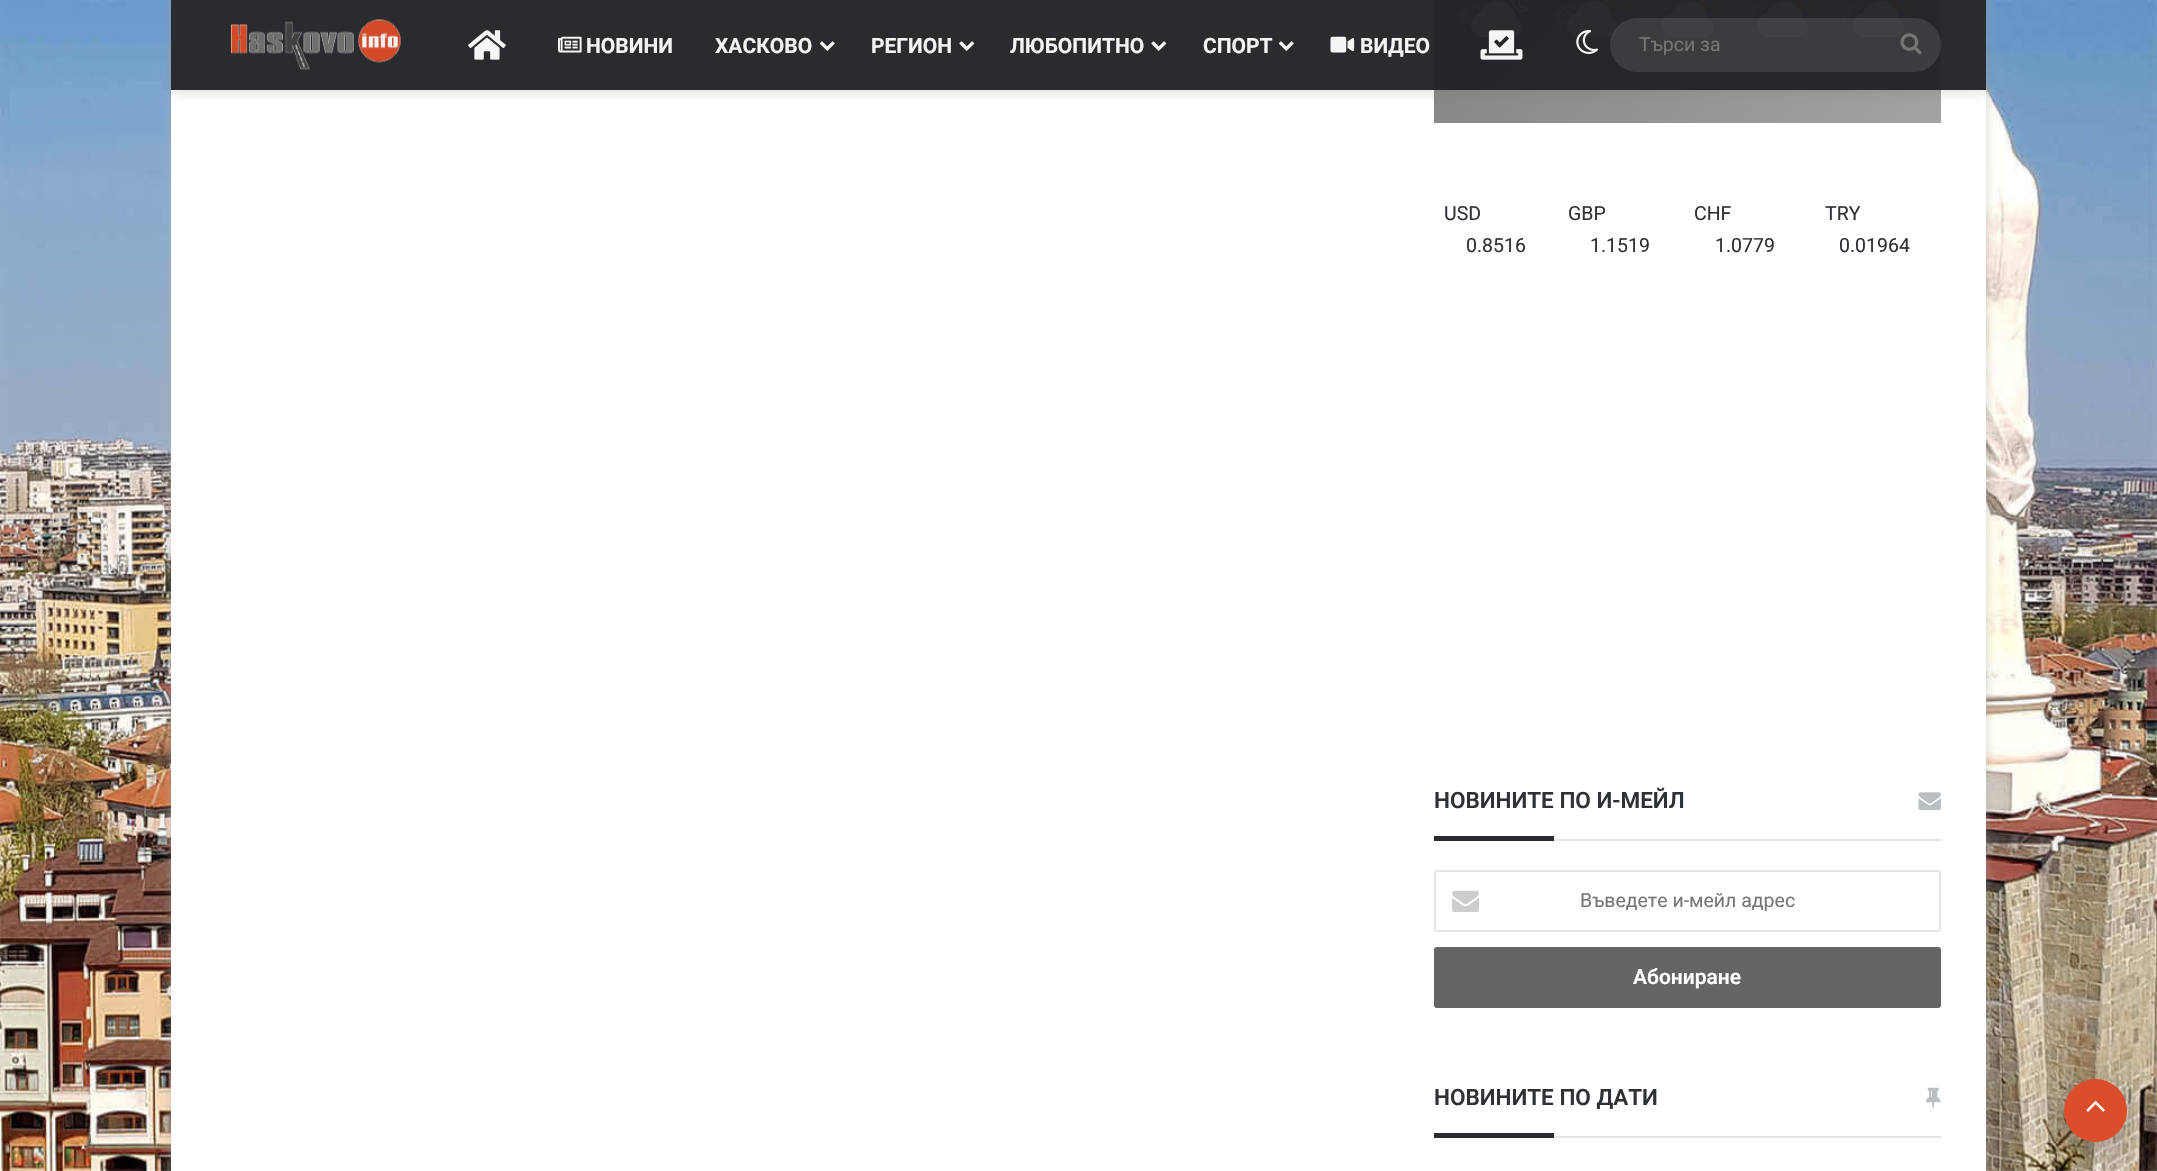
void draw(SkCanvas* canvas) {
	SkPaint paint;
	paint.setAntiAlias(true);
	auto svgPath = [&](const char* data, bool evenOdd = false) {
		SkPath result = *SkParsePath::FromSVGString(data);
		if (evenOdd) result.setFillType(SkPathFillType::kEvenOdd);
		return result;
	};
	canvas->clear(0xffffffff);
	canvas->drawImageRect(SkImages::DeferredFromEncodedData(SkData::MakeFromFileName("img1.png")), SkRect::MakeXYWH(0, 0, 2157, 1171), SkSamplingOptions());
	paint.setColor(0x80ababab);
	paint.setMaskFilter(SkMaskFilter::MakeBlur(kNormal_SkBlurStyle, 5));
	canvas->drawRect(SkRect::MakeXYWH(171, -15, 1815, 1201), paint);
	paint.setMaskFilter(nullptr);
	paint.setColor(0xffffffff);
	canvas->drawRect(SkRect::MakeXYWH(171, 0, 1815, 1171), paint);
	{
		const SkColor colors[] = {0xff727272, 0xffa3a3a3};
		const float stops[] = {0, 1};
		const SkPoint ends[] = {{1454, -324}, {1921, 143}};
		paint.setShader(SkGradientShader::MakeLinear(ends, colors, stops, 2, SkTileMode::kClamp));
		paint.setAlpha(255);
	}
	canvas->drawRect(SkRect::MakeXYWH(1434, 0, 507, 123), paint);
	canvas->drawImageRect(SkImages::DeferredFromEncodedData(SkData::MakeFromFileName("img11.png")), SkRect::MakeXYWH(1513, 0, 17, 12), SkSamplingOptions());
	canvas->drawImageRect(SkImages::DeferredFromEncodedData(SkData::MakeFromFileName("img14.png")), SkRect::MakeXYWH(1460, 6, 22, 17), SkSamplingOptions());
	canvas->drawImageRect(SkImages::DeferredFromEncodedData(SkData::MakeFromFileName("img12.png")), SkRect::MakeXYWH(1471, 1, 51, 36), SkSamplingOptions());
	canvas->drawImageRect(SkImages::DeferredFromEncodedData(SkData::MakeFromFileName("img13.png")), SkRect::MakeXYWH(1471, 1, 51, 36), SkSamplingOptions());
	canvas->drawImageRect(SkImages::DeferredFromEncodedData(SkData::MakeFromFileName("img15.png")), SkRect::MakeXYWH(1605, 0, 21, 15), SkSamplingOptions());
	canvas->drawImageRect(SkImages::DeferredFromEncodedData(SkData::MakeFromFileName("img18.png")), SkRect::MakeXYWH(1556, 6, 22, 17), SkSamplingOptions());
	canvas->drawImageRect(SkImages::DeferredFromEncodedData(SkData::MakeFromFileName("img16.png")), SkRect::MakeXYWH(1567, 1, 51, 36), SkSamplingOptions());
	canvas->drawImageRect(SkImages::DeferredFromEncodedData(SkData::MakeFromFileName("img17.png")), SkRect::MakeXYWH(1567, 1, 51, 36), SkSamplingOptions());
	canvas->drawImageRect(SkImages::DeferredFromEncodedData(SkData::MakeFromFileName("img19.png")), SkRect::MakeXYWH(1699, 0, 22, 15), SkSamplingOptions());
	canvas->drawImageRect(SkImages::DeferredFromEncodedData(SkData::MakeFromFileName("img20.png")), SkRect::MakeXYWH(1661, 1, 50, 36), SkSamplingOptions());
	canvas->drawImageRect(SkImages::DeferredFromEncodedData(SkData::MakeFromFileName("img21.png")), SkRect::MakeXYWH(1671, 1, 43, 36), SkSamplingOptions());
	canvas->drawImageRect(SkImages::DeferredFromEncodedData(SkData::MakeFromFileName("img22.png")), SkRect::MakeXYWH(1684, 36, 6, 3), SkSamplingOptions());
	canvas->drawImageRect(SkImages::DeferredFromEncodedData(SkData::MakeFromFileName("img23.png")), SkRect::MakeXYWH(1795, 0, 22, 15), SkSamplingOptions());
	canvas->drawImageRect(SkImages::DeferredFromEncodedData(SkData::MakeFromFileName("img26.png")), SkRect::MakeXYWH(1746, 6, 22, 17), SkSamplingOptions());
	canvas->drawImageRect(SkImages::DeferredFromEncodedData(SkData::MakeFromFileName("img24.png")), SkRect::MakeXYWH(1757, 1, 51, 36), SkSamplingOptions());
	canvas->drawImageRect(SkImages::DeferredFromEncodedData(SkData::MakeFromFileName("img25.png")), SkRect::MakeXYWH(1757, 1, 51, 36), SkSamplingOptions());
	canvas->drawImageRect(SkImages::DeferredFromEncodedData(SkData::MakeFromFileName("img27.png")), SkRect::MakeXYWH(1891, 0, 22, 15), SkSamplingOptions());
	canvas->drawImageRect(SkImages::DeferredFromEncodedData(SkData::MakeFromFileName("img30.png")), SkRect::MakeXYWH(1842, 6, 22, 17), SkSamplingOptions());
	canvas->drawImageRect(SkImages::DeferredFromEncodedData(SkData::MakeFromFileName("img28.png")), SkRect::MakeXYWH(1853, 1, 51, 36), SkSamplingOptions());
	canvas->drawImageRect(SkImages::DeferredFromEncodedData(SkData::MakeFromFileName("img29.png")), SkRect::MakeXYWH(1853, 1, 51, 36), SkSamplingOptions());
	canvas->save();
	canvas->clipPath(svgPath("M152 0H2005V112H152ZM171 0H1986V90H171Z", true), true);
	paint.setShader(nullptr);
	paint.setColor(0x33636363);
	paint.setMaskFilter(SkMaskFilter::MakeBlur(kNormal_SkBlurStyle, 6));
	canvas->drawRect(SkRect::MakeXYWH(171, 3, 1815, 90), paint);
	paint.setMaskFilter(nullptr);
	canvas->restore();
	paint.setColor(0xf21f2024);
	canvas->drawRect(SkRect::MakeXYWH(171, 0, 1815, 90), paint);
	canvas->drawImageRect(SkImages::DeferredFromEncodedData(SkData::MakeFromFileName("img2.png")), SkRect::MakeXYWH(231, 19, 170, 51), SkSamplingOptions());
	canvas->drawImageRect(SkImages::DeferredFromEncodedData(SkData::MakeFromFileName("img3.png")), SkRect::MakeXYWH(468, 30, 38, 30), SkSamplingOptions());
	canvas->drawImageRect(SkImages::DeferredFromEncodedData(SkData::MakeFromFileName("img4.png")), SkRect::MakeXYWH(558, 36, 24, 17), SkSamplingOptions());
	SkFont f1(fontMgr->matchFamilyStyle("Roboto", SkFontStyle::Bold()), 21);
	f1.setSubpixel(true);
	paint.setColor(0xfff4f4f5);
	canvas->drawString("НОВИНИ", 586, 53, f1, paint);
	canvas->drawString("ХАСКОВО", 715, 53, f1, paint);
	canvas->drawImageRect(SkImages::DeferredFromEncodedData(SkData::MakeFromFileName("img5.png")), SkRect::MakeXYWH(819, 41, 16, 10), SkSamplingOptions());
	canvas->drawString("РЕГИОН", 871, 53, f1, paint);
	canvas->drawImageRect(SkImages::DeferredFromEncodedData(SkData::MakeFromFileName("img6.png")), SkRect::MakeXYWH(959, 41, 16, 10), SkSamplingOptions());
	canvas->drawString("ЛЮБОПИТНО", 1010, 53, f1, paint);
	canvas->drawImageRect(SkImages::DeferredFromEncodedData(SkData::MakeFromFileName("img6.png")), SkRect::MakeXYWH(1151, 41, 16, 10), SkSamplingOptions());
	canvas->drawString("СПОРТ", 1203, 53, f1, paint);
	canvas->drawImageRect(SkImages::DeferredFromEncodedData(SkData::MakeFromFileName("img5.png")), SkRect::MakeXYWH(1278, 41, 16, 10), SkSamplingOptions());
	canvas->drawImageRect(SkImages::DeferredFromEncodedData(SkData::MakeFromFileName("img7.png")), SkRect::MakeXYWH(1330, 36, 25, 17), SkSamplingOptions());
	canvas->drawString("ВИДЕО", 1360, 53, f1, paint);
	canvas->drawImageRect(SkImages::DeferredFromEncodedData(SkData::MakeFromFileName("img8.png")), SkRect::MakeXYWH(1480, 30, 43, 30), SkSamplingOptions());
	canvas->drawImageRect(SkImages::DeferredFromEncodedData(SkData::MakeFromFileName("img9.png")), SkRect::MakeXYWH(1576, 30, 22, 24), SkSamplingOptions());
	paint.setColor(0x1affffff);
	canvas->drawRoundRect(SkRect::MakeXYWH(1610, 18, 331, 54), 27, 27, paint);
	SkFont f2(fontMgr->matchFamilyStyle("Roboto", SkFontStyle::Normal()), 19.5);
	f2.setSubpixel(true);
	paint.setColor(0xff767676);
	canvas->drawString("Търси за", 1639, 51, f2, paint);
	canvas->drawImageRect(SkImages::DeferredFromEncodedData(SkData::MakeFromFileName("img10.png")), SkRect::MakeXYWH(1900, 33, 22, 21), SkSamplingOptions());
	paint.setColor(0xff2e3136);
	canvas->drawString("USD", 1444, 220, f2, paint);
	canvas->drawString("0.8516", 1466, 252, f2, paint);
	canvas->drawString("GBP", 1568, 220, f2, paint);
	canvas->drawString("1.1519", 1590, 252, f2, paint);
	canvas->drawString("CHF", 1694, 220, f2, paint);
	canvas->drawString("1.0779", 1715, 252, f2, paint);
	canvas->drawString("TRY", 1825, 220, f2, paint);
	canvas->drawString("0.01964", 1839, 252, f2, paint);
	paint.setColor(0xffe6e6e6);
	canvas->drawRect(SkRect::MakeXYWH(1554, 839, 387, 2), paint);
	SkFont f3(fontMgr->matchFamilyStyle("Roboto", SkFontStyle(600, SkFontStyle::kNormal_Width, SkFontStyle::kUpright_Slant)), 22.5);
	f3.setSubpixel(true);
	paint.setColor(0xff2e3136);
	canvas->drawString("НОВИНИТЕ ПО И-МЕЙЛ", 1434, 808, f3, paint);
	canvas->drawImageRect(SkImages::DeferredFromEncodedData(SkData::MakeFromFileName("img31.png")), SkRect::MakeXYWH(1918, 792, 23, 18), SkSamplingOptions());
	paint.setColor(0xff292b2f);
	canvas->drawRect(SkRect::MakeXYWH(1434, 836, 120, 5), paint);
	paint.setStroke(true);
	paint.setStrokeWidth(2);
	paint.setColor(0xffe6e6e6);
	canvas->drawRoundRect(SkRect::MakeXYWH(1435, 871, 505, 60), 2, 2, paint);
	canvas->drawImageRect(SkImages::DeferredFromEncodedData(SkData::MakeFromFileName("img32.png")), SkRect::MakeXYWH(1452, 890, 27, 22), SkSamplingOptions());
	paint.setStroke(false);
	paint.setColor(0xff767676);
	canvas->drawString("Въведете и-мейл адрес", 1580, 907, f2, paint);
	paint.setColor(0xff656565);
	canvas->drawRoundRect(SkRect::MakeXYWH(1434, 947, 507, 61), 3, 3, paint);
	SkFont f4(fontMgr->matchFamilyStyle("Roboto", SkFontStyle(600, SkFontStyle::kNormal_Width, SkFontStyle::kUpright_Slant)), 21);
	f4.setSubpixel(true);
	paint.setColor(0xffffffff);
	canvas->drawString("Абониране", 1633, 984, f4, paint);
	paint.setColor(0xffe6e6e6);
	canvas->drawRect(SkRect::MakeXYWH(1554, 1136, 387, 2), paint);
	paint.setColor(0xff2e3136);
	canvas->drawString("НОВИНИТЕ ПО ДАТИ", 1434, 1105, f3, paint);
	canvas->drawImageRect(SkImages::DeferredFromEncodedData(SkData::MakeFromFileName("img33.png")), SkRect::MakeXYWH(1926, 1087, 15, 22), SkSamplingOptions());
	paint.setColor(0xff292b2f);
	canvas->drawRect(SkRect::MakeXYWH(1434, 1133, 120, 5), paint);
	paint.setColor(0x4d000000);
	paint.setMaskFilter(SkMaskFilter::MakeBlur(kNormal_SkBlurStyle, 19));
	canvas->drawRoundRect(SkRect::MakeXYWH(2064, 1086, 63, 63), 31.5, 31.5, paint);
	paint.setMaskFilter(nullptr);
	paint.setColor(0xffdc4d2b);
	canvas->drawCircle(2095.5, 1110.5, 31.5, paint);
	canvas->drawImageRect(SkImages::DeferredFromEncodedData(SkData::MakeFromFileName("img34.png")), SkRect::MakeXYWH(2086, 1101, 19, 11), SkSamplingOptions());
}
